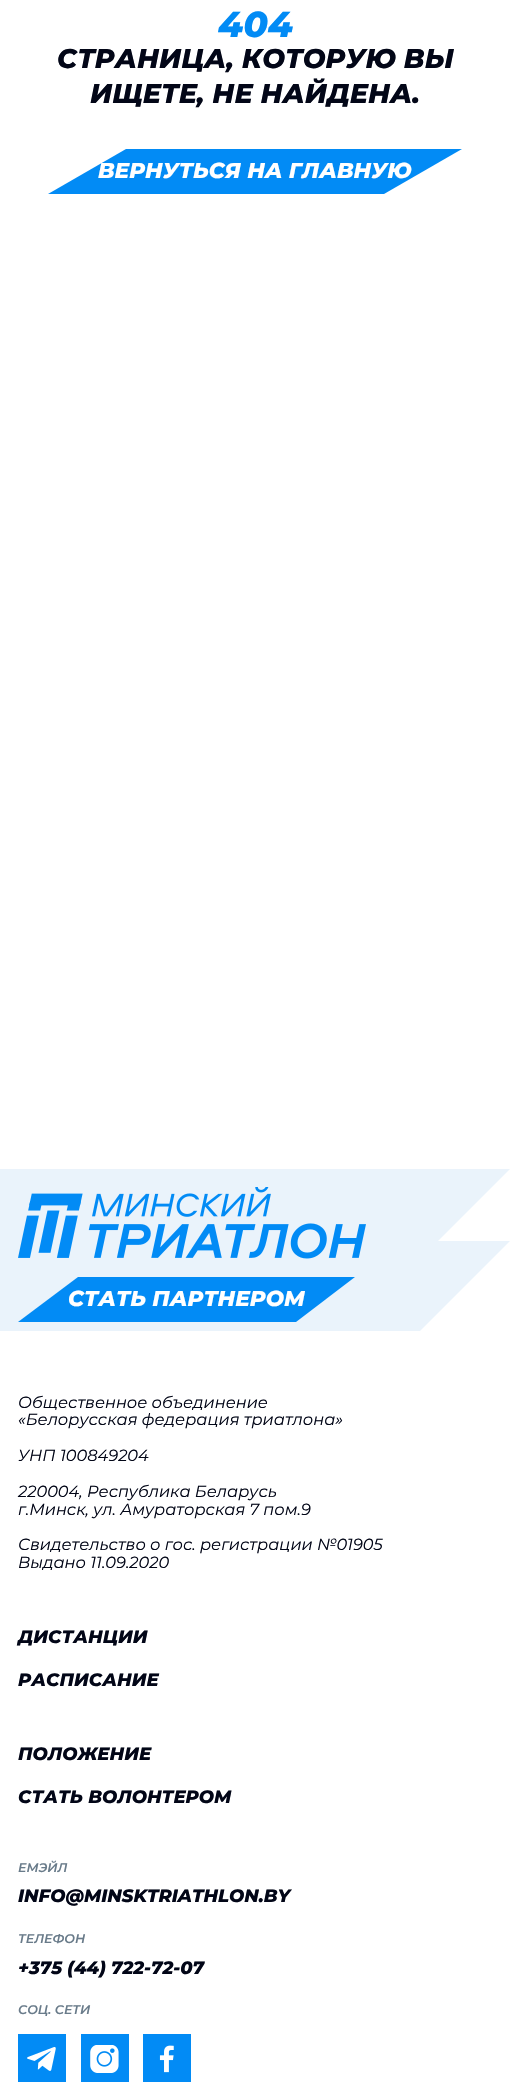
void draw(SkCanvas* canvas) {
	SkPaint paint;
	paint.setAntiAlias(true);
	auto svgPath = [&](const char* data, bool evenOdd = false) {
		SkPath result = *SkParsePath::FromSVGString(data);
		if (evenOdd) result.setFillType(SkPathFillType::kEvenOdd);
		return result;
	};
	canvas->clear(0xffffffff);
	SkFont f1(fontMgr->matchFamilyStyle("Montserrat", SkFontStyle(800, SkFontStyle::kNormal_Width, SkFontStyle::kItalic_Slant)), 36);
	f1.setSubpixel(true);
	paint.setColor(0xff028bf5);
	canvas->drawString("404", 218, 37, f1, paint);
	SkFont f2(fontMgr->matchFamilyStyle("Montserrat", SkFontStyle(800, SkFontStyle::kNormal_Width, SkFontStyle::kItalic_Slant)), 27);
	f2.setSubpixel(true);
	paint.setColor(0xff020617);
	canvas->drawString("СТРАНИЦА, КОТОРУЮ ВЫ", 57, 68, f2, paint);
	canvas->drawString("ИЩЕТЕ, НЕ НАЙДЕНА.", 90, 103, f2, paint);
	paint.setColor(0xff028bf5);
	canvas->drawPath(svgPath("M126 149H462L384 194H48Z"), paint);
	SkFont f3(fontMgr->matchFamilyStyle("Montserrat", SkFontStyle(800, SkFontStyle::kNormal_Width, SkFontStyle::kItalic_Slant)), 21.6);
	f3.setSubpixel(true);
	paint.setColor(0xffffffff);
	canvas->drawString("ВЕРНУТЬСЯ НА ГЛАВНУЮ", 98, 178, f3, paint);
	paint.setColor(0xffeaf3fb);
	canvas->drawPath(svgPath("M510 1169L420 1259H-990L-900 1169Z"), paint);
	canvas->drawPath(svgPath("M510 1241L420 1331H-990L-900 1241Z"), paint);
	canvas->drawImageRect(SkImages::DeferredFromEncodedData(SkData::MakeFromFileName("img1.png")), SkRect::MakeXYWH(18, 1187, 348, 72), SkSamplingOptions());
	paint.setColor(0xff028bf5);
	canvas->drawPath(svgPath("M18 1322L78 1277H355L296 1322Z"), paint);
	paint.setColor(0xffffffff);
	canvas->drawString("СТАТЬ ПАРТНЕРОМ", 68, 1306, f3, paint);
	SkFont f4(fontMgr->matchFamilyStyle("Montserrat", SkFontStyle::Italic()), 16.2);
	f4.setSubpixel(true);
	paint.setColor(0xff020617);
	canvas->drawString("Общественное объединение", 18, 1408, f4, paint);
	canvas->drawString("«Белорусская федерация триатлона»", 18, 1425, f4, paint);
	canvas->drawString("УНП 100849204", 18, 1461, f4, paint);
	canvas->drawString("220004, Республика Беларусь", 18, 1497, f4, paint);
	canvas->drawString("г.Минск, ул. Амураторская 7 пом.9", 18, 1515, f4, paint);
	canvas->drawString("Свидетельство о гос. регистрации №01905", 18, 1550, f4, paint);
	canvas->drawString("Выдано 11.09.2020", 18, 1568, f4, paint);
	SkFont f5(fontMgr->matchFamilyStyle("Montserrat", SkFontStyle(800, SkFontStyle::kNormal_Width, SkFontStyle::kItalic_Slant)), 18);
	f5.setSubpixel(true);
	canvas->drawString("ДИСТАНЦИИ", 18, 1643, f5, paint);
	canvas->drawString("РАСПИСАНИЕ", 18, 1686, f5, paint);
	canvas->drawString("ПОЛОЖЕНИЕ", 18, 1760, f5, paint);
	canvas->drawString("СТАТЬ ВОЛОНТЕРОМ", 18, 1803, f5, paint);
	SkFont f6(fontMgr->matchFamilyStyle("Montserrat", SkFontStyle(600, SkFontStyle::kNormal_Width, SkFontStyle::kItalic_Slant)), 12.5);
	f6.setSubpixel(true);
	paint.setColor(0xff697b8a);
	canvas->drawString("ЕМЭЙЛ", 18, 1872, f6, paint);
	paint.setColor(0xff020617);
	canvas->drawString("INFO@MINSKTRIATHLON.BY", 18, 1902, f5, paint);
	paint.setColor(0xff697b8a);
	canvas->drawString("ТЕЛЕФОН", 18, 1943, f6, paint);
	paint.setColor(0xff020617);
	canvas->drawString("+375 (44) 722-72-07", 18, 1974, f5, paint);
	paint.setColor(0xff697b8a);
	canvas->drawString("СОЦ. СЕТИ", 18, 2014, f6, paint);
	paint.setColor(0xff028bf5);
	canvas->drawRect(SkRect::MakeXYWH(18, 2034, 48, 48), paint);
	canvas->drawImageRect(SkImages::DeferredFromEncodedData(SkData::MakeFromFileName("img2.png")), SkRect::MakeXYWH(27, 2047, 29, 24), SkSamplingOptions());
	canvas->drawRect(SkRect::MakeXYWH(81, 2034, 48, 48), paint);
	canvas->drawImageRect(SkImages::DeferredFromEncodedData(SkData::MakeFromFileName("img3.png")), SkRect::MakeXYWH(90, 2045, 29, 28), SkSamplingOptions());
	canvas->drawRect(SkRect::MakeXYWH(143, 2034, 48, 48), paint);
	canvas->drawImageRect(SkImages::DeferredFromEncodedData(SkData::MakeFromFileName("img4.png")), SkRect::MakeXYWH(159, 2045, 15, 28), SkSamplingOptions());
}
